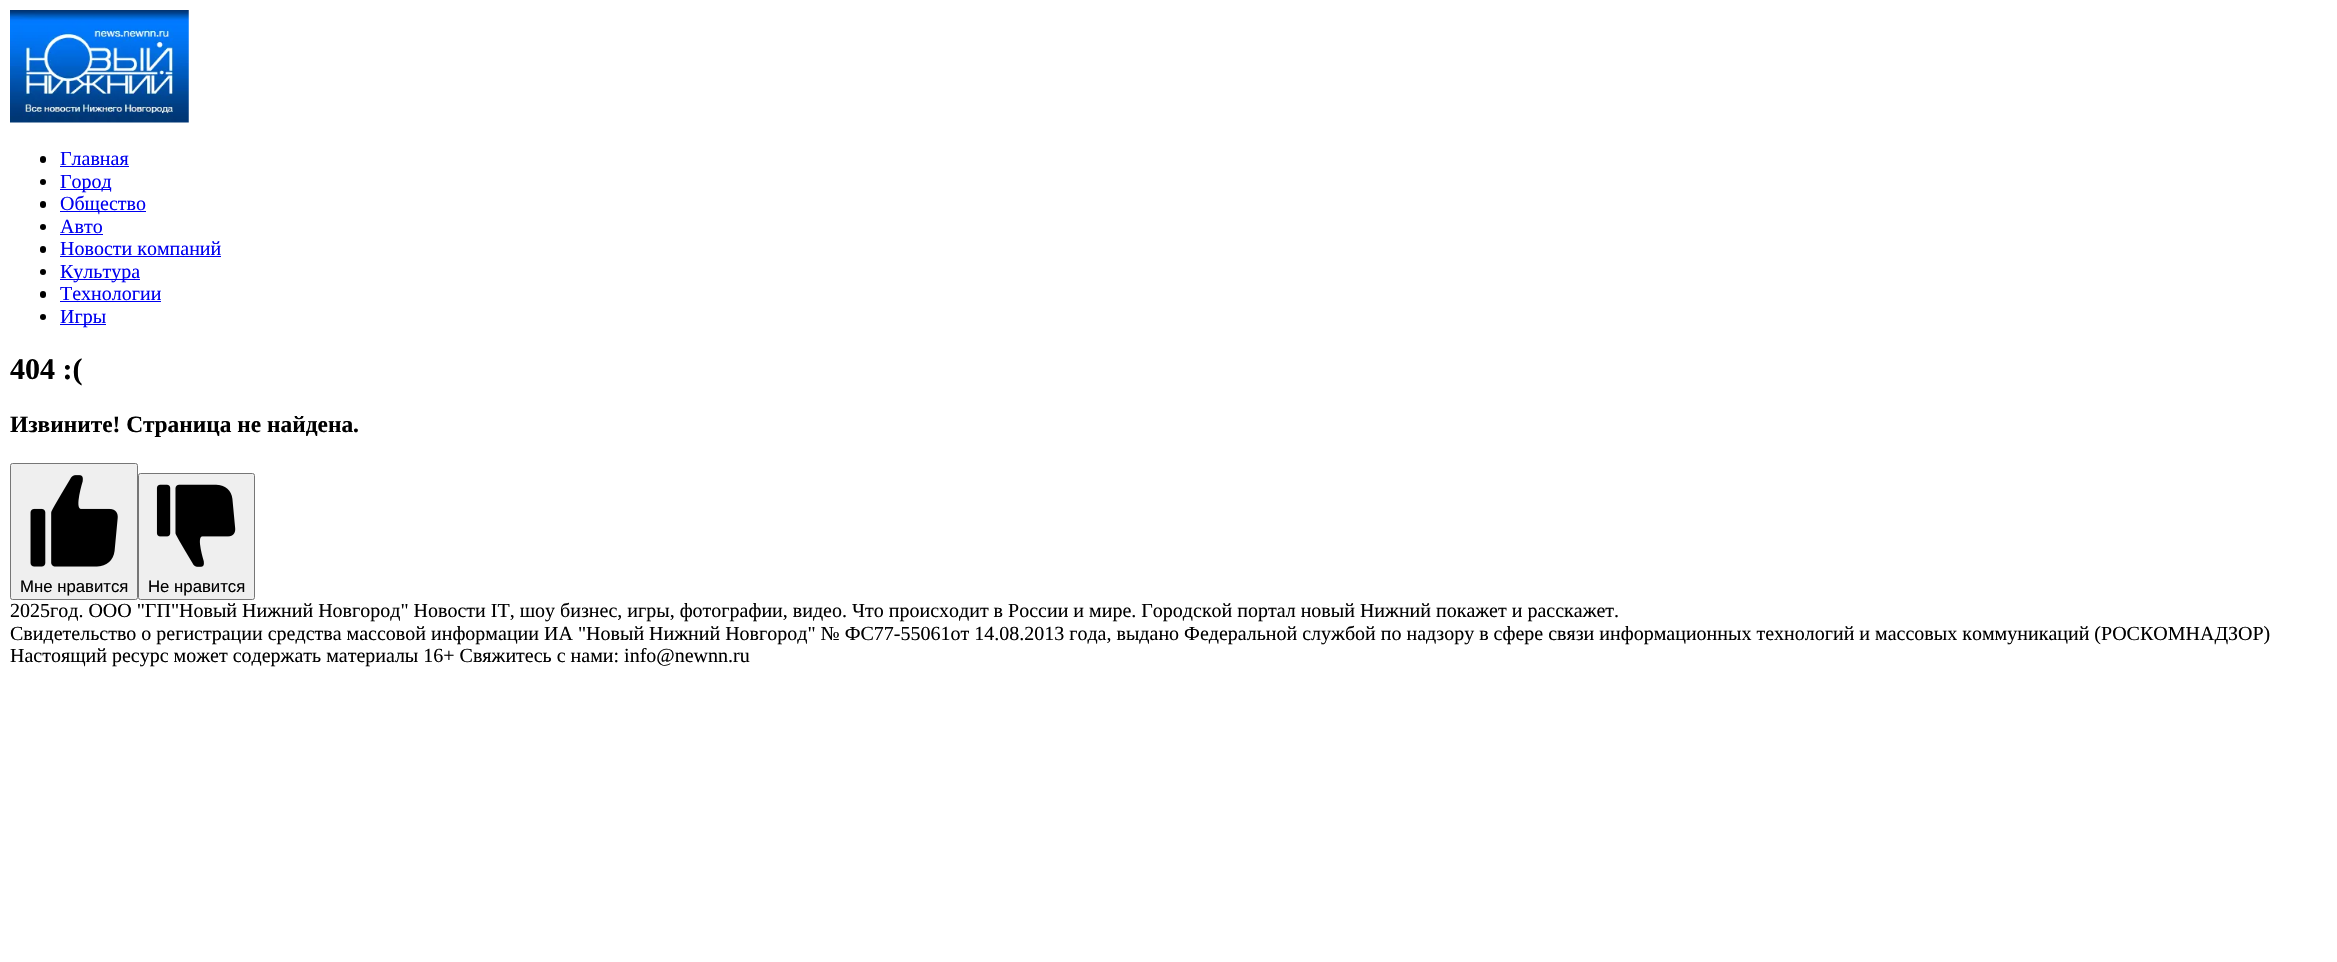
void draw(SkCanvas* canvas) {
	SkPaint paint;
	paint.setAntiAlias(true);
	canvas->clear(0xffffffff);
	canvas->drawImageRect(SkImages::DeferredFromEncodedData(SkData::MakeFromFileName("img1.png")), SkRect::MakeXYWH(10, 10, 179, 113), SkSamplingOptions());
	paint.setColor(0xff000000);
	canvas->drawRoundRect(SkRect::MakeXYWH(40, 156, 6, 7), 3, 3, paint);
	SkFont f1(fontMgr->matchFamilyStyle("Liberation Serif", SkFontStyle::Normal()), 20);
	f1.setSubpixel(true);
	paint.setColor(0xff0000ee);
	canvas->drawString("Главная", 60, 165, f1, paint);
	canvas->drawRect(SkRect::MakeXYWH(60, 166, 69, 1), paint);
	paint.setColor(0xff000000);
	canvas->drawCircle(43, 182, 3, paint);
	paint.setColor(0xff0000ee);
	canvas->drawRect(SkRect::MakeXYWH(60, 189, 51, 1), paint);
	canvas->drawString("Город", 60, 188, f1, paint);
	paint.setColor(0xff000000);
	canvas->drawRoundRect(SkRect::MakeXYWH(40, 201, 6, 7), 3, 3, paint);
	paint.setColor(0xff0000ee);
	canvas->drawRect(SkRect::MakeXYWH(60, 211, 86, 1), paint);
	canvas->drawString("Общество", 60, 210, f1, paint);
	paint.setColor(0xff000000);
	canvas->drawCircle(43, 227, 3, paint);
	paint.setColor(0xff0000ee);
	canvas->drawString("Авто", 60, 233, f1, paint);
	canvas->drawRect(SkRect::MakeXYWH(60, 234, 43, 1), paint);
	paint.setColor(0xff000000);
	canvas->drawRoundRect(SkRect::MakeXYWH(40, 246, 6, 7), 3, 3, paint);
	paint.setColor(0xff0000ee);
	canvas->drawString("Новости компаний", 60, 255, f1, paint);
	canvas->drawRect(SkRect::MakeXYWH(60, 256, 161, 1), paint);
	paint.setColor(0xff000000);
	canvas->drawCircle(43, 272, 3, paint);
	paint.setColor(0xff0000ee);
	canvas->drawRect(SkRect::MakeXYWH(60, 279, 80, 1), paint);
	canvas->drawString("Культура", 60, 278, f1, paint);
	paint.setColor(0xff000000);
	canvas->drawRoundRect(SkRect::MakeXYWH(40, 291, 6, 7), 3, 3, paint);
	paint.setColor(0xff0000ee);
	canvas->drawString("Технологии", 60, 300, f1, paint);
	canvas->drawRect(SkRect::MakeXYWH(60, 301, 101, 1), paint);
	paint.setColor(0xff000000);
	canvas->drawCircle(43, 317, 3, paint);
	paint.setColor(0xff0000ee);
	canvas->drawRect(SkRect::MakeXYWH(60, 324, 46, 1), paint);
	canvas->drawString("Игры", 60, 323, f1, paint);
	SkFont f2(fontMgr->matchFamilyStyle("Liberation Serif", SkFontStyle::Bold()), 30);
	f2.setSubpixel(true);
	paint.setColor(0xff000000);
	canvas->drawString("404 :(", 10, 379, f2, paint);
	SkFont f3(fontMgr->matchFamilyStyle("Liberation Serif", SkFontStyle::Bold()), 23.4);
	f3.setSubpixel(true);
	canvas->drawString("Извините! Страница не найдена.", 10, 432, f3, paint);
	paint.setColor(0xffefefef);
	canvas->drawRoundRect(SkRect::MakeXYWH(10.5, 463.5, 127, 136), 2, 2, paint);
	paint.setStroke(true);
	paint.setStrokeWidth(1);
	paint.setColor(0xff767676);
	canvas->drawRoundRect(SkRect::MakeXYWH(10.5, 463.5, 127, 136), 2, 2, paint);
	canvas->drawImageRect(SkImages::DeferredFromEncodedData(SkData::MakeFromFileName("img2.png")), SkRect::MakeXYWH(30, 475, 88, 92), SkSamplingOptions());
	SkFont f4(fontMgr->matchFamilyStyle("Liberation Sans", SkFontStyle::Normal()), 16.75);
	f4.setSubpixel(true);
	paint.setStroke(false);
	paint.setColor(0xff000000);
	canvas->drawString("Мне нравится", 20, 592, f4, paint);
	paint.setColor(0xffefefef);
	canvas->drawRoundRect(SkRect::MakeXYWH(138.5, 473.5, 116, 126), 2, 2, paint);
	paint.setStroke(true);
	paint.setColor(0xff767676);
	canvas->drawRoundRect(SkRect::MakeXYWH(138.5, 473.5, 116, 126), 2, 2, paint);
	canvas->drawImageRect(SkImages::DeferredFromEncodedData(SkData::MakeFromFileName("img3.png")), SkRect::MakeXYWH(156, 484, 80, 83), SkSamplingOptions());
	paint.setStroke(false);
	paint.setColor(0xff000000);
	canvas->drawString("Не нравится", 148, 592, f4, paint);
	canvas->drawString("2025год. ООО \"ГП\"Новый Нижний Новгород\" Новости IT, шоу бизнес, игры, фотографии, видео. Что происходит в России и мире. Городской портал новый Нижний покажет и расскажет.", 10, 617, f1, paint);
	canvas->drawString("Свидетельство о регистрации средства массовой информации ИА \"Новый Нижний Новгород\" № ФС77-55061от 14.08.2013 года, выдано Федеральной службой по надзору в сфере связи информационных технологий и массовых коммуникаций (РОСКОМНАДЗОР)", 10, 640, f1, paint);
	canvas->drawString("Настоящий ресурс может содержать материалы 16+ Свяжитесь с нами: info@newnn.ru", 10, 662, f1, paint);
}
